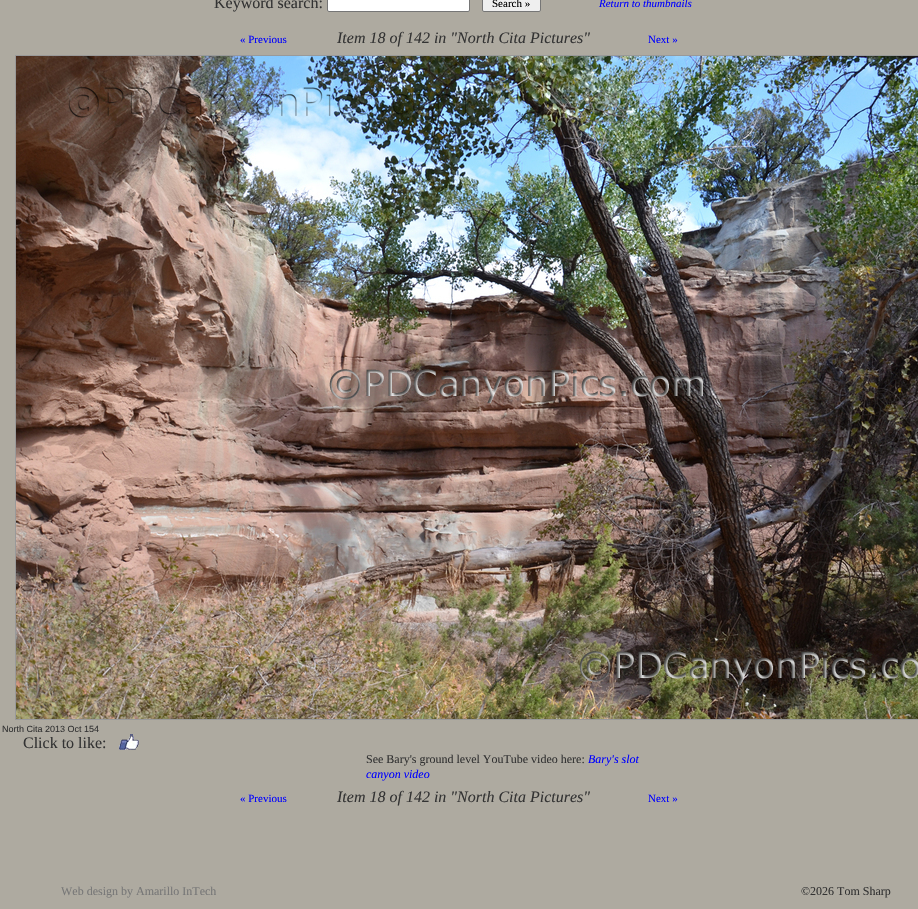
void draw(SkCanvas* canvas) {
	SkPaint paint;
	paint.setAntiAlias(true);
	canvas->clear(0xffaeaaa0);
	SkFont f1(fontMgr->matchFamilyStyle("Liberation Serif", SkFontStyle::Normal()), 16);
	f1.setSubpixel(true);
	paint.setColor(0xff333333);
	canvas->drawString("Keyword search:", 214, 8, f1, paint);
	paint.setColor(0xffffffff);
	canvas->drawRoundRect(SkRect::MakeXYWH(327.5, -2.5, 142, 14), 1.5, 1.5, paint);
	paint.setStroke(true);
	paint.setStrokeWidth(1);
	paint.setColor(0xff767676);
	canvas->drawRoundRect(SkRect::MakeXYWH(327.5, -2.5, 142, 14), 1.5, 1.5, paint);
	paint.setStroke(false);
	paint.setColor(0xffefefef);
	canvas->drawRoundRect(SkRect::MakeXYWH(482.5, -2.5, 58, 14), 1.5, 1.5, paint);
	paint.setStroke(true);
	paint.setColor(0xff767676);
	canvas->drawRoundRect(SkRect::MakeXYWH(482.5, -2.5, 58, 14), 1.5, 1.5, paint);
	SkFont f2(fontMgr->matchFamilyStyle("Liberation Serif", SkFontStyle::Normal()), 11);
	f2.setSubpixel(true);
	paint.setStroke(false);
	paint.setColor(0xff000000);
	canvas->drawString("Search »", 492, 7, f2, paint);
	SkFont f3(fontMgr->matchFamilyStyle("Liberation Serif", SkFontStyle::Italic()), 11);
	f3.setSubpixel(true);
	paint.setColor(0xff0000ff);
	canvas->drawString("Return to thumbnails", 599, 7, f3, paint);
	canvas->drawString("« Previous", 240, 43, f2, paint);
	SkFont f4(fontMgr->matchFamilyStyle("Liberation Serif", SkFontStyle::Italic()), 16);
	f4.setSubpixel(true);
	paint.setColor(0xff333333);
	canvas->drawString("Item 18 of 142 in \"North Cita Pictures\"", 337, 43, f4, paint);
	paint.setColor(0xff0000ff);
	canvas->drawString("Next »", 648, 43, f2, paint);
	paint.setStroke(true);
	paint.setColor(0xff999999);
	canvas->drawRect(SkRect::MakeXYWH(15.5, 55.5, 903, 664), paint);
	canvas->drawImageRect(SkImages::DeferredFromEncodedData(SkData::MakeFromFileName("img1.png")), SkRect::MakeXYWH(16, 56, 902, 663), SkSamplingOptions());
	SkFont f5(fontMgr->matchFamilyStyle("Liberation Sans", SkFontStyle::Normal()), 9);
	f5.setSubpixel(true);
	paint.setStroke(false);
	paint.setColor(0xff333333);
	canvas->drawString("North Cita 2013 Oct 154", 2, 732, f5, paint);
	canvas->drawString("Click to like:", 23, 748, f1, paint);
	canvas->drawImageRect(SkImages::DeferredFromEncodedData(SkData::MakeFromFileName("img2.png")), SkRect::MakeXYWH(119, 734, 20, 16), SkSamplingOptions());
	SkFont f6(fontMgr->matchFamilyStyle("Liberation Serif", SkFontStyle::Normal()), 12);
	f6.setSubpixel(true);
	canvas->drawString("See Bary's ground level YouTube video here:", 366, 763, f6, paint);
	SkFont f7(fontMgr->matchFamilyStyle("Liberation Serif", SkFontStyle::Italic()), 12);
	f7.setSubpixel(true);
	paint.setColor(0xff0000ff);
	canvas->drawString("Bary's slot", 588, 763, f7, paint);
	canvas->drawString("canyon video", 366, 778, f7, paint);
	canvas->drawString("« Previous", 240, 802, f2, paint);
	paint.setColor(0xff333333);
	canvas->drawString("Item 18 of 142 in \"North Cita Pictures\"", 337, 802, f4, paint);
	paint.setColor(0xff0000ff);
	canvas->drawString("Next »", 648, 802, f2, paint);
	paint.setColor(0xff777777);
	canvas->drawString("Web design by Amarillo InTech", 61, 895, f6, paint);
	paint.setColor(0xff333333);
	canvas->drawString("©2026 Tom Sharp", 801, 895, f6, paint);
}
